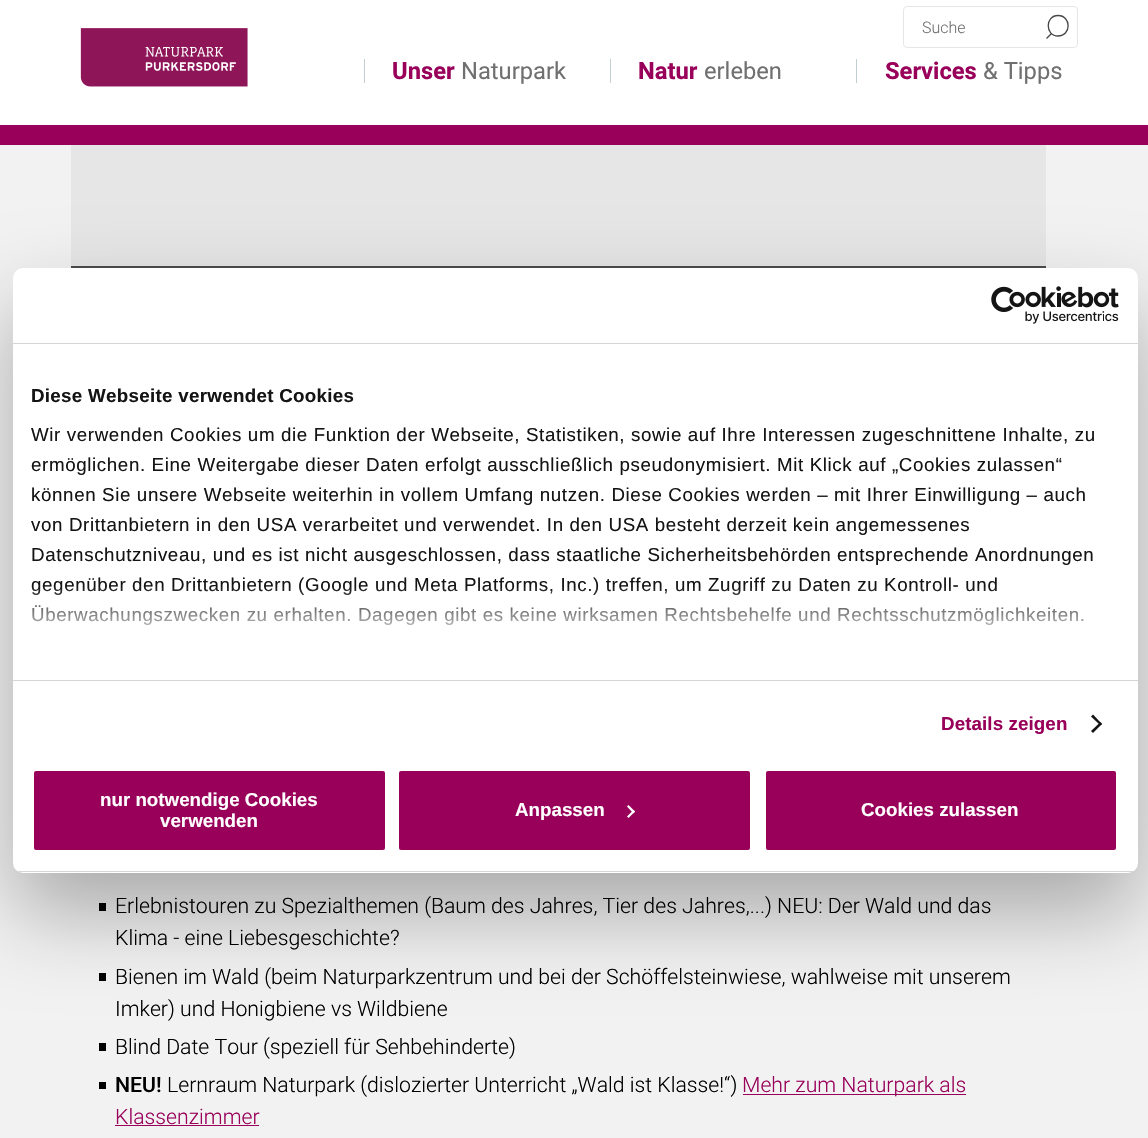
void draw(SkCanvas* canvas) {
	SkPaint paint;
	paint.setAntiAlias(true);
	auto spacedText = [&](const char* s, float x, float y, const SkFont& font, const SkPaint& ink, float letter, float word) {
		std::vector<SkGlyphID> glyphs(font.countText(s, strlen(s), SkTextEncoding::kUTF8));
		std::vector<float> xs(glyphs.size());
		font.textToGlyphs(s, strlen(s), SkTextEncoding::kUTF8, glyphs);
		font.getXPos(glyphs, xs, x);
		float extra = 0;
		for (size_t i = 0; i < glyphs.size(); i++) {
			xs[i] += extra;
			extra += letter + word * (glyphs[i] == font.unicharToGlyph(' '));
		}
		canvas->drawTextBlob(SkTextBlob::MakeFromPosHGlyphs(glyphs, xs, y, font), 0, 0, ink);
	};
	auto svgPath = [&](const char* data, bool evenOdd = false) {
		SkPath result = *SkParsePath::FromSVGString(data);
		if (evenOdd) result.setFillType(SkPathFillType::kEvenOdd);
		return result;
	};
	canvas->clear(0xfff2f2f2);
	canvas->drawImageRect(SkImages::DeferredFromEncodedData(SkData::MakeFromFileName("img1.png")), SkRect::MakeXYWH(0, 0, 1148, 125), SkSamplingOptions());
	paint.setColor(0xff98005a);
	canvas->drawRect(SkRect::MakeXYWH(0, 125, 1148, 20), paint);
	canvas->drawImageRect(SkImages::DeferredFromEncodedData(SkData::MakeFromFileName("img2.png")), SkRect::MakeXYWH(80, 28, 168, 59), SkSamplingOptions());
	paint.setStroke(true);
	paint.setStrokeWidth(1.3);
	paint.setColor(0xff464646);
	canvas->drawPath(svgPath("M1058 15.5C1071.5 15.5 1071.5 36 1058 36C1045 36 1045 15.5 1058 15.5ZM1051.5 33.5L1046.5 38.5"), paint);
	paint.setStrokeWidth(1);
	paint.setColor(0xffe6e6e6);
	canvas->drawRoundRect(SkRect::MakeXYWH(903.5, 6.5, 174, 41), 3.5, 3.5, paint);
	SkFont f1(fontMgr->matchFamilyStyle("Roboto", SkFontStyle(300, SkFontStyle::kNormal_Width, SkFontStyle::kUpright_Slant)), 16);
	f1.setSubpixel(true);
	paint.setStroke(false);
	paint.setColor(0xff707070);
	canvas->drawString("Suche", 922, 33, f1, paint);
	paint.setColor(0xffc1cfd2);
	canvas->drawRect(SkRect::MakeXYWH(364, 59, 1, 24), paint);
	SkFont f2(fontMgr->matchFamilyStyle("Roboto", SkFontStyle::Bold()), 23.75);
	f2.setSubpixel(true);
	paint.setColor(0xff98005a);
	canvas->drawString("Unser", 392, 79, f2, paint);
	SkFont f3(fontMgr->matchFamilyStyle("Roboto", SkFontStyle::Normal()), 23.75);
	f3.setSubpixel(true);
	paint.setColor(0xff707070);
	canvas->drawString("Naturpark", 461, 79, f3, paint);
	paint.setColor(0xffc1cfd2);
	canvas->drawRect(SkRect::MakeXYWH(610, 59, 1, 24), paint);
	paint.setColor(0xff98005a);
	canvas->drawString("Natur", 638, 79, f2, paint);
	paint.setColor(0xff707070);
	canvas->drawString("erleben", 704, 79, f3, paint);
	paint.setColor(0xffc1cfd2);
	canvas->drawRect(SkRect::MakeXYWH(856, 59, 1, 24), paint);
	paint.setColor(0xff98005a);
	canvas->drawString("Services", 885, 79, f2, paint);
	paint.setColor(0xff707070);
	canvas->drawString("& Tipps", 983, 79, f3, paint);
	paint.setColor(0xffe6e6e6);
	canvas->drawRect(SkRect::MakeXYWH(71, 145, 975, 121), paint);
	paint.setColor(0xff4c4c4c);
	canvas->drawRect(SkRect::MakeXYWH(71, 266, 975, 2), paint);
	paint.setColor(0xff000000);
	canvas->drawRect(SkRect::MakeXYWH(99, 903, 7, 8), paint);
	SkFont f4(fontMgr->matchFamilyStyle("Roboto", SkFontStyle(300, SkFontStyle::kNormal_Width, SkFontStyle::kUpright_Slant)), 21.25);
	f4.setSubpixel(true);
	canvas->drawString("Erlebnistouren zu Spezialthemen (Baum des Jahres, Tier des Jahres,...) NEU: Der Wald und das", 115, 913, f4, paint);
	canvas->drawString("Klima - eine Liebesgeschichte?", 115, 945, f4, paint);
	canvas->drawRect(SkRect::MakeXYWH(99, 973, 7, 8), paint);
	canvas->drawString("Bienen im Wald (beim Naturparkzentrum und bei der Schöffelsteinwiese, wahlweise mit unserem", 115, 984, f4, paint);
	canvas->drawString("Imker) und Honigbiene vs Wildbiene", 115, 1016, f4, paint);
	canvas->drawRect(SkRect::MakeXYWH(99, 1043, 7, 8), paint);
	canvas->drawString("Blind Date Tour (speziell für Sehbehinderte)", 115, 1054, f4, paint);
	canvas->drawRect(SkRect::MakeXYWH(99, 1082, 7, 7), paint);
	SkFont f5(fontMgr->matchFamilyStyle("Roboto", SkFontStyle(500, SkFontStyle::kNormal_Width, SkFontStyle::kUpright_Slant)), 21.25);
	f5.setSubpixel(true);
	canvas->drawString("NEU!", 115, 1092, f5, paint);
	canvas->drawString("Lernraum Naturpark (dislozierter Unterricht „Wald ist Klasse!“)", 167, 1092, f4, paint);
	paint.setColor(0xff98005a);
	canvas->drawRect(SkRect::MakeXYWH(743, 1094, 223, 1), paint);
	canvas->drawString("Mehr zum Naturpark als", 742, 1092, f4, paint);
	canvas->drawString("Klassenzimmer", 115, 1124, f4, paint);
	canvas->drawRect(SkRect::MakeXYWH(115, 1125, 144, 1), paint);
	paint.setColor(0x4d000000);
	paint.setMaskFilter(SkMaskFilter::MakeBlur(kNormal_SkBlurStyle, 42.5));
	canvas->drawRoundRect(SkRect::MakeXYWH(13, 308, 1125, 605), 10, 10, paint);
	paint.setMaskFilter(nullptr);
	paint.setColor(0xffffffff);
	canvas->drawRoundRect(SkRect::MakeXYWH(13, 268, 1125, 605), 10, 10, paint);
	paint.setColor(0xffd6d6d6);
	canvas->drawRect(SkRect::MakeXYWH(13, 343, 1125, 1), paint);
	canvas->drawImageRect(SkImages::DeferredFromEncodedData(SkData::MakeFromFileName("img3.png")), SkRect::MakeXYWH(991, 286, 128, 38), SkSamplingOptions());
	canvas->drawRect(SkRect::MakeXYWH(13, 680, 1125, 1), paint);
	SkFont f6(fontMgr->matchFamilyStyle("Liberation Sans", SkFontStyle::Bold()), 18.75);
	f6.setSubpixel(true);
	paint.setColor(0xff141414);
	spacedText("Diese Webseite verwendet Cookies", 31, 402, f6, paint, 0.3, 0);
	SkFont f7(fontMgr->matchFamilyStyle("Liberation Sans", SkFontStyle::Normal()), 18.75);
	f7.setSubpixel(true);
	spacedText("Wir verwenden Cookies um die Funktion der Webseite, Statistiken, sowie auf Ihre Interessen zugeschnittene Inhalte, zu", 31, 441, f7, paint, 0.62, 0);
	spacedText("ermöglichen. Eine Weitergabe dieser Daten erfolgt ausschließlich pseudonymisiert. Mit Klick auf „Cookies zulassen“", 31, 471, f7, paint, 0.62, 0);
	spacedText("können Sie unsere Webseite weiterhin in vollem Umfang nutzen. Diese Cookies werden – mit Ihrer Einwilligung – auch", 31, 501, f7, paint, 0.62, 0);
	spacedText("von Drittanbietern in den USA verarbeitet und verwendet. In den USA besteht derzeit kein angemessenes", 31, 531, f7, paint, 0.62, 0);
	spacedText("Datenschutzniveau, und es ist nicht ausgeschlossen, dass staatliche Sicherheitsbehörden entsprechende Anordnungen", 31, 561, f7, paint, 0.62, 0);
	spacedText("gegenüber den Drittanbietern (Google und Meta Platforms, Inc.) treffen, um Zugriff zu Daten zu Kontroll- und", 31, 591, f7, paint, 0.62, 0);
	spacedText("Überwachungszwecken zu erhalten. Dagegen gibt es keine wirksamen Rechtsbehelfe und Rechtsschutzmöglichkeiten.", 31, 621, f7, paint, 0.62, 0);
	{
		const SkColor colors[] = {0xffffffff, 0xccffffff, 0x00ffffff};
		const float stops[] = {0, 0.5, 1};
		const SkPoint ends[] = {{567, 680}, {567, 586}};
		paint.setShader(SkGradientShader::MakeLinear(ends, colors, stops, 3, SkTileMode::kClamp));
		paint.setAlpha(255);
	}
	canvas->drawRect(SkRect::MakeXYWH(31, 587, 1053, 38), paint);
	paint.setShader(nullptr);
	paint.setColor(0xff98005a);
	spacedText("Details zeigen", 941, 730, f6, paint, 0.1, 0);
	paint.setColor(0xff141414);
	canvas->drawPath(svgPath("M1093 714.5L1102 724L1100.5 725.5L1091 716.5Z"), paint);
	canvas->drawPath(svgPath("M1100.5 722L1102 724L1093 733L1091 731Z"), paint);
	canvas->save();
	canvas->clipPath(svgPath("M23 268H1128C1133.5 268 1138 272.5 1138 278V863C1138 868.5 1133.5 873 1128 873H23C17.5 873 13 868.5 13 863V278C13 272.5 17.5 268 23 268Z"), true);
	paint.setColor(0xffd6d6d6);
	canvas->drawRect(SkRect::MakeXYWH(13, 871, 1125, 1), paint);
	canvas->restore();
	paint.setColor(0xff98005a);
	canvas->drawRoundRect(SkRect::MakeXYWH(32.5, 769.5, 354, 82), 3.5, 3.5, paint);
	paint.setStroke(true);
	paint.setStrokeWidth(3);
	paint.setColor(0xffffffff);
	canvas->drawRoundRect(SkRect::MakeXYWH(32.5, 769.5, 354, 82), 3.5, 3.5, paint);
	paint.setStroke(false);
	canvas->drawString("nur notwendige Cookies", 100, 806, f6, paint);
	canvas->drawString("verwenden", 160, 827, f6, paint);
	paint.setColor(0xff98005a);
	canvas->drawRoundRect(SkRect::MakeXYWH(397.5, 769.5, 354, 82), 3.5, 3.5, paint);
	paint.setStroke(true);
	paint.setColor(0xffffffff);
	canvas->drawRoundRect(SkRect::MakeXYWH(397.5, 769.5, 354, 82), 3.5, 3.5, paint);
	paint.setStroke(false);
	canvas->drawString("Anpassen", 515, 816, f6, paint);
	canvas->drawPath(svgPath("M628.5 805L635 811.5L633.5 813.5L627 806.5Z"), paint);
	canvas->drawPath(svgPath("M633.5 810L635 811.5L628.5 818L627 816.5Z"), paint);
	paint.setColor(0xff98005a);
	canvas->drawRoundRect(SkRect::MakeXYWH(764.5, 769.5, 353, 82), 3.5, 3.5, paint);
	paint.setStroke(true);
	paint.setColor(0xffffffff);
	canvas->drawRoundRect(SkRect::MakeXYWH(764.5, 769.5, 353, 82), 3.5, 3.5, paint);
	paint.setStroke(false);
	canvas->drawString("Cookies zulassen", 861, 816, f6, paint);
}
